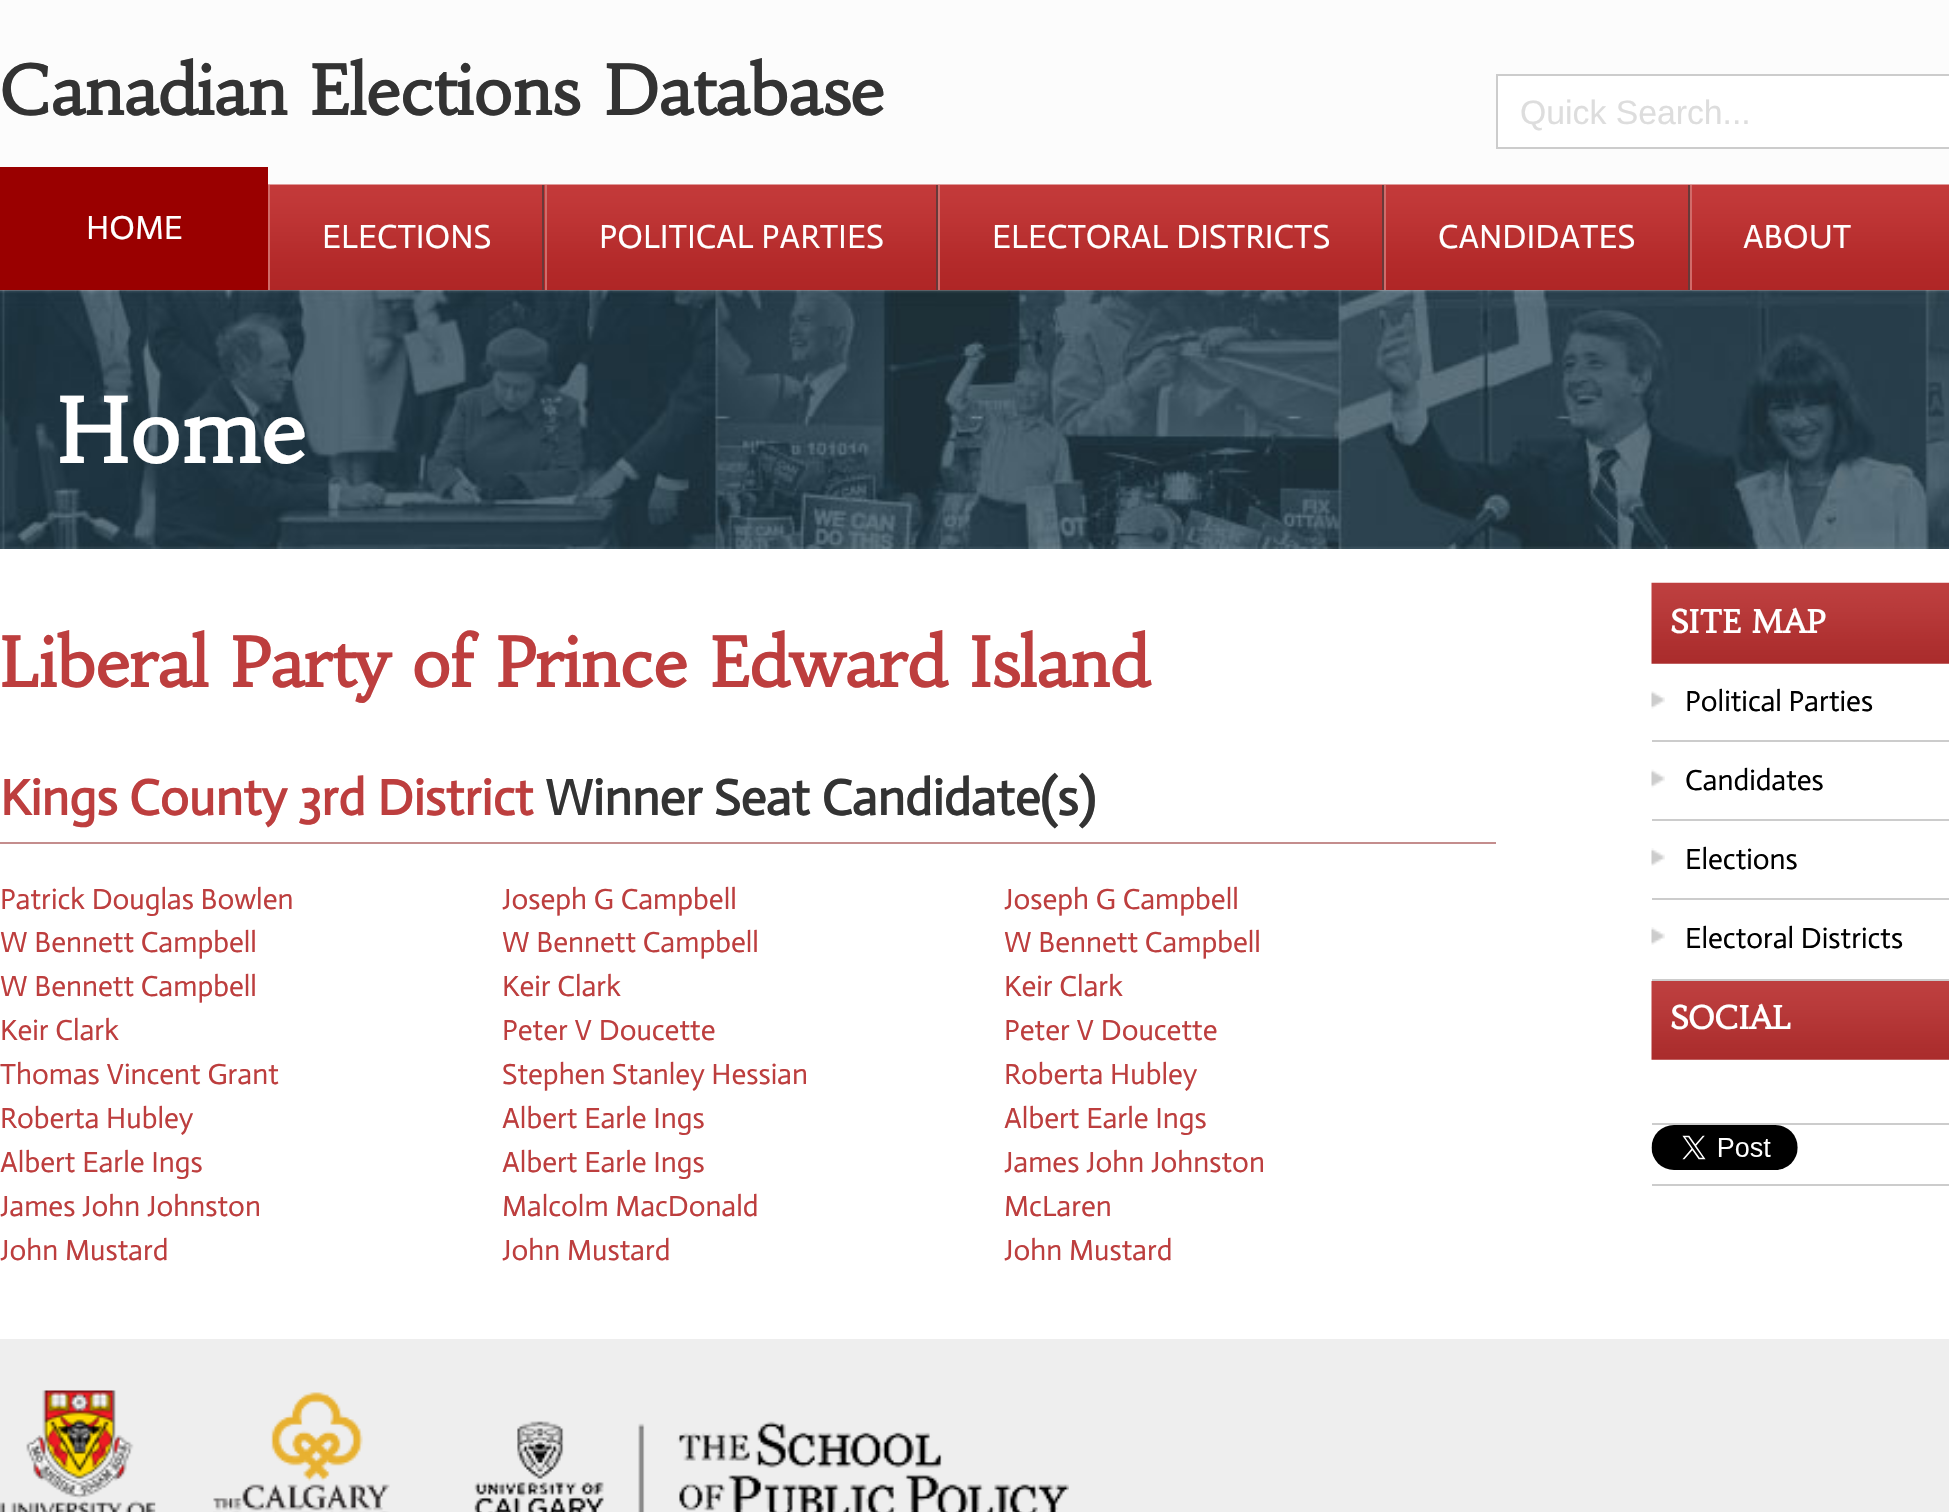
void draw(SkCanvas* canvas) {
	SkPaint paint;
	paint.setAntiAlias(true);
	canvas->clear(0xffffffff);
	paint.setColor(0xfffcfcfc);
	canvas->drawRect(SkRect::MakeXYWH(0, 0, 1949, 185), paint);
	SkFont f1(fontMgr->matchFamilyStyle("Habibi", SkFontStyle::Bold()), 67.5);
	f1.setSubpixel(true);
	paint.setColor(0xff333333);
	canvas->drawString("Canadian Elections Database", 0, 115, f1, paint);
	paint.setColor(0xffffffff);
	canvas->drawRect(SkRect::MakeXYWH(1497, 75, 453, 73), paint);
	paint.setStroke(true);
	paint.setStrokeWidth(2);
	paint.setColor(0xffcccccc);
	canvas->drawRect(SkRect::MakeXYWH(1497, 75, 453, 73), paint);
	SkFont f2(fontMgr->matchFamilyStyle("Liberation Sans", SkFontStyle::Normal()), 33.75);
	f2.setSubpixel(true);
	paint.setStroke(false);
	paint.setColor(0xffdddddd);
	canvas->drawString("Quick Search...", 1520, 124, f2, paint);
	canvas->drawImageRect(SkImages::DeferredFromEncodedData(SkData::MakeFromFileName("img1.png")), SkRect::MakeXYWH(0, 184, 1949, 107), SkSamplingOptions());
	paint.setColor(0xff9a0000);
	canvas->drawRect(SkRect::MakeXYWH(0, 167, 268, 123), paint);
	SkFont f3(fontMgr->matchFamilyStyle("Actor", SkFontStyle::Normal()), 33.75);
	f3.setSubpixel(true);
	paint.setColor(0xffffffff);
	canvas->drawString("HOME", 86, 239, f3, paint);
	paint.setColor(0xff683939);
	canvas->drawRect(SkRect::MakeXYWH(542, 185, 2, 105), paint);
	paint.setColor(0xffd16b69);
	canvas->drawRect(SkRect::MakeXYWH(268, 185, 2, 105), paint);
	paint.setColor(0xffffffff);
	canvas->drawString("ELECTIONS", 322, 248, f3, paint);
	paint.setColor(0xff683939);
	canvas->drawRect(SkRect::MakeXYWH(936, 185, 2, 105), paint);
	paint.setColor(0xffd16b69);
	canvas->drawRect(SkRect::MakeXYWH(545, 185, 2, 105), paint);
	paint.setColor(0xffffffff);
	canvas->drawString("POLITICAL PARTIES", 599, 248, f3, paint);
	paint.setColor(0xff683939);
	canvas->drawRect(SkRect::MakeXYWH(1382, 185, 2, 105), paint);
	paint.setColor(0xffd16b69);
	canvas->drawRect(SkRect::MakeXYWH(938, 185, 2, 105), paint);
	paint.setColor(0xffffffff);
	canvas->drawString("ELECTORAL DISTRICTS", 992, 248, f3, paint);
	paint.setColor(0xff683939);
	canvas->drawRect(SkRect::MakeXYWH(1688, 185, 2, 105), paint);
	paint.setColor(0xffd16b69);
	canvas->drawRect(SkRect::MakeXYWH(1384, 185, 2, 105), paint);
	paint.setColor(0xffffffff);
	canvas->drawString("CANDIDATES", 1438, 248, f3, paint);
	paint.setColor(0xffd16b69);
	canvas->drawRect(SkRect::MakeXYWH(1690, 185, 2, 105), paint);
	paint.setColor(0xffffffff);
	canvas->drawString("ABOUT", 1743, 248, f3, paint);
	canvas->drawImageRect(SkImages::DeferredFromEncodedData(SkData::MakeFromFileName("img2.png")), SkRect::MakeXYWH(0, 290, 1949, 259), SkSamplingOptions());
	SkFont f4(fontMgr->matchFamilyStyle("Habibi", SkFontStyle::Bold()), 88);
	f4.setSubpixel(true);
	canvas->drawString("Home", 56, 463, f4, paint);
	paint.setColor(0xffbd3e3e);
	canvas->drawString("Liberal Party of Prince Edward Island", 0, 687, f1, paint);
	paint.setColor(0xffc48d8d);
	canvas->drawRect(SkRect::MakeXYWH(0, 842, 1496, 2), paint);
	SkFont f5(fontMgr->matchFamilyStyle("Actor", SkFontStyle::Bold()), 50.6);
	f5.setSubpixel(true);
	paint.setColor(0xffbd3e3e);
	canvas->drawString("Kings County 3rd District", 0, 815, f5, paint);
	paint.setColor(0xff333333);
	canvas->drawString("Winner Seat Candidate(s)", 545, 815, f5, paint);
	SkFont f6(fontMgr->matchFamilyStyle("Actor", SkFontStyle::Normal()), 29.25);
	f6.setSubpixel(true);
	paint.setColor(0xffbd3e3e);
	canvas->drawString("Patrick Douglas Bowlen", 0, 909, f6, paint);
	canvas->drawString("Joseph G Campbell", 502, 909, f6, paint);
	canvas->drawString("Joseph G Campbell", 1004, 909, f6, paint);
	canvas->drawString("W Bennett Campbell", 0, 952, f6, paint);
	canvas->drawString("W Bennett Campbell", 502, 952, f6, paint);
	canvas->drawString("W Bennett Campbell", 1004, 952, f6, paint);
	canvas->drawString("W Bennett Campbell", 0, 996, f6, paint);
	canvas->drawString("Keir Clark", 502, 996, f6, paint);
	canvas->drawString("Keir Clark", 1004, 996, f6, paint);
	canvas->drawString("Keir Clark", 0, 1040, f6, paint);
	canvas->drawString("Peter V Doucette", 502, 1040, f6, paint);
	canvas->drawString("Peter V Doucette", 1004, 1040, f6, paint);
	canvas->drawString("Thomas Vincent Grant", 0, 1084, f6, paint);
	canvas->drawString("Stephen Stanley Hessian", 502, 1084, f6, paint);
	canvas->drawString("Roberta Hubley", 1004, 1084, f6, paint);
	canvas->drawString("Roberta Hubley", 0, 1128, f6, paint);
	canvas->drawString("Albert Earle Ings", 502, 1128, f6, paint);
	canvas->drawString("Albert Earle Ings", 1004, 1128, f6, paint);
	canvas->drawString("Albert Earle Ings", 0, 1172, f6, paint);
	canvas->drawString("Albert Earle Ings", 502, 1172, f6, paint);
	canvas->drawString("James John Johnston", 1004, 1172, f6, paint);
	canvas->drawString("James John Johnston", 0, 1216, f6, paint);
	canvas->drawString("Malcolm MacDonald", 502, 1216, f6, paint);
	canvas->drawString("McLaren", 1004, 1216, f6, paint);
	canvas->drawString("John Mustard", 0, 1260, f6, paint);
	canvas->drawString("John Mustard", 502, 1260, f6, paint);
	canvas->drawString("John Mustard", 1004, 1260, f6, paint);
	canvas->drawImageRect(SkImages::DeferredFromEncodedData(SkData::MakeFromFileName("img3.png")), SkRect::MakeXYWH(1651, 582, 298, 82), SkSamplingOptions());
	SkFont f7(fontMgr->matchFamilyStyle("Habibi", SkFontStyle::Bold()), 31.5);
	f7.setSubpixel(true);
	paint.setColor(0xffffffff);
	canvas->drawString("SITE MAP", 1670, 633, f7, paint);
	paint.setColor(0xffcccccc);
	canvas->drawRect(SkRect::MakeXYWH(1652, 740, 297, 2), paint);
	canvas->drawImageRect(SkImages::DeferredFromEncodedData(SkData::MakeFromFileName("img4.png")), SkRect::MakeXYWH(1651, 691, 14, 18), SkSamplingOptions());
	paint.setColor(0xff000000);
	canvas->drawString("Political Parties", 1685, 711, f6, paint);
	paint.setColor(0xffcccccc);
	canvas->drawRect(SkRect::MakeXYWH(1652, 819, 297, 2), paint);
	canvas->drawImageRect(SkImages::DeferredFromEncodedData(SkData::MakeFromFileName("img5.png")), SkRect::MakeXYWH(1651, 769, 14, 19), SkSamplingOptions());
	paint.setColor(0xff000000);
	canvas->drawString("Candidates", 1685, 790, f6, paint);
	paint.setColor(0xffcccccc);
	canvas->drawRect(SkRect::MakeXYWH(1652, 898, 297, 2), paint);
	canvas->drawImageRect(SkImages::DeferredFromEncodedData(SkData::MakeFromFileName("img6.png")), SkRect::MakeXYWH(1651, 848, 14, 18), SkSamplingOptions());
	paint.setColor(0xff000000);
	canvas->drawString("Elections", 1685, 869, f6, paint);
	paint.setColor(0xffcccccc);
	canvas->drawRect(SkRect::MakeXYWH(1652, 979, 297, 2), paint);
	canvas->drawImageRect(SkImages::DeferredFromEncodedData(SkData::MakeFromFileName("img7.png")), SkRect::MakeXYWH(1651, 927, 14, 18), SkSamplingOptions());
	paint.setColor(0xff000000);
	canvas->drawString("Electoral Districts", 1685, 948, f6, paint);
	canvas->drawImageRect(SkImages::DeferredFromEncodedData(SkData::MakeFromFileName("img8.png")), SkRect::MakeXYWH(1651, 981, 298, 79), SkSamplingOptions());
	paint.setColor(0xffffffff);
	canvas->drawString("SOCIAL", 1670, 1029, f7, paint);
	paint.setColor(0xffcccccc);
	canvas->drawRect(SkRect::MakeXYWH(1652, 1123, 297, 2), paint);
	canvas->drawRect(SkRect::MakeXYWH(1652, 1184, 297, 2), paint);
	canvas->drawImageRect(SkImages::DeferredFromEncodedData(SkData::MakeFromFileName("img9.png")), SkRect::MakeXYWH(1651, 1125, 147, 45), SkSamplingOptions());
	paint.setColor(0xffeeeeee);
	canvas->drawRect(SkRect::MakeXYWH(0, 1339, 1949, 173), paint);
	canvas->drawImageRect(SkImages::DeferredFromEncodedData(SkData::MakeFromFileName("img10.png")), SkRect::MakeXYWH(0, 1390, 156, 122), SkSamplingOptions());
	canvas->drawImageRect(SkImages::DeferredFromEncodedData(SkData::MakeFromFileName("img11.png")), SkRect::MakeXYWH(213, 1392, 177, 120), SkSamplingOptions());
	canvas->drawImageRect(SkImages::DeferredFromEncodedData(SkData::MakeFromFileName("img12.png")), SkRect::MakeXYWH(474, 1421, 595, 91), SkSamplingOptions());
}
